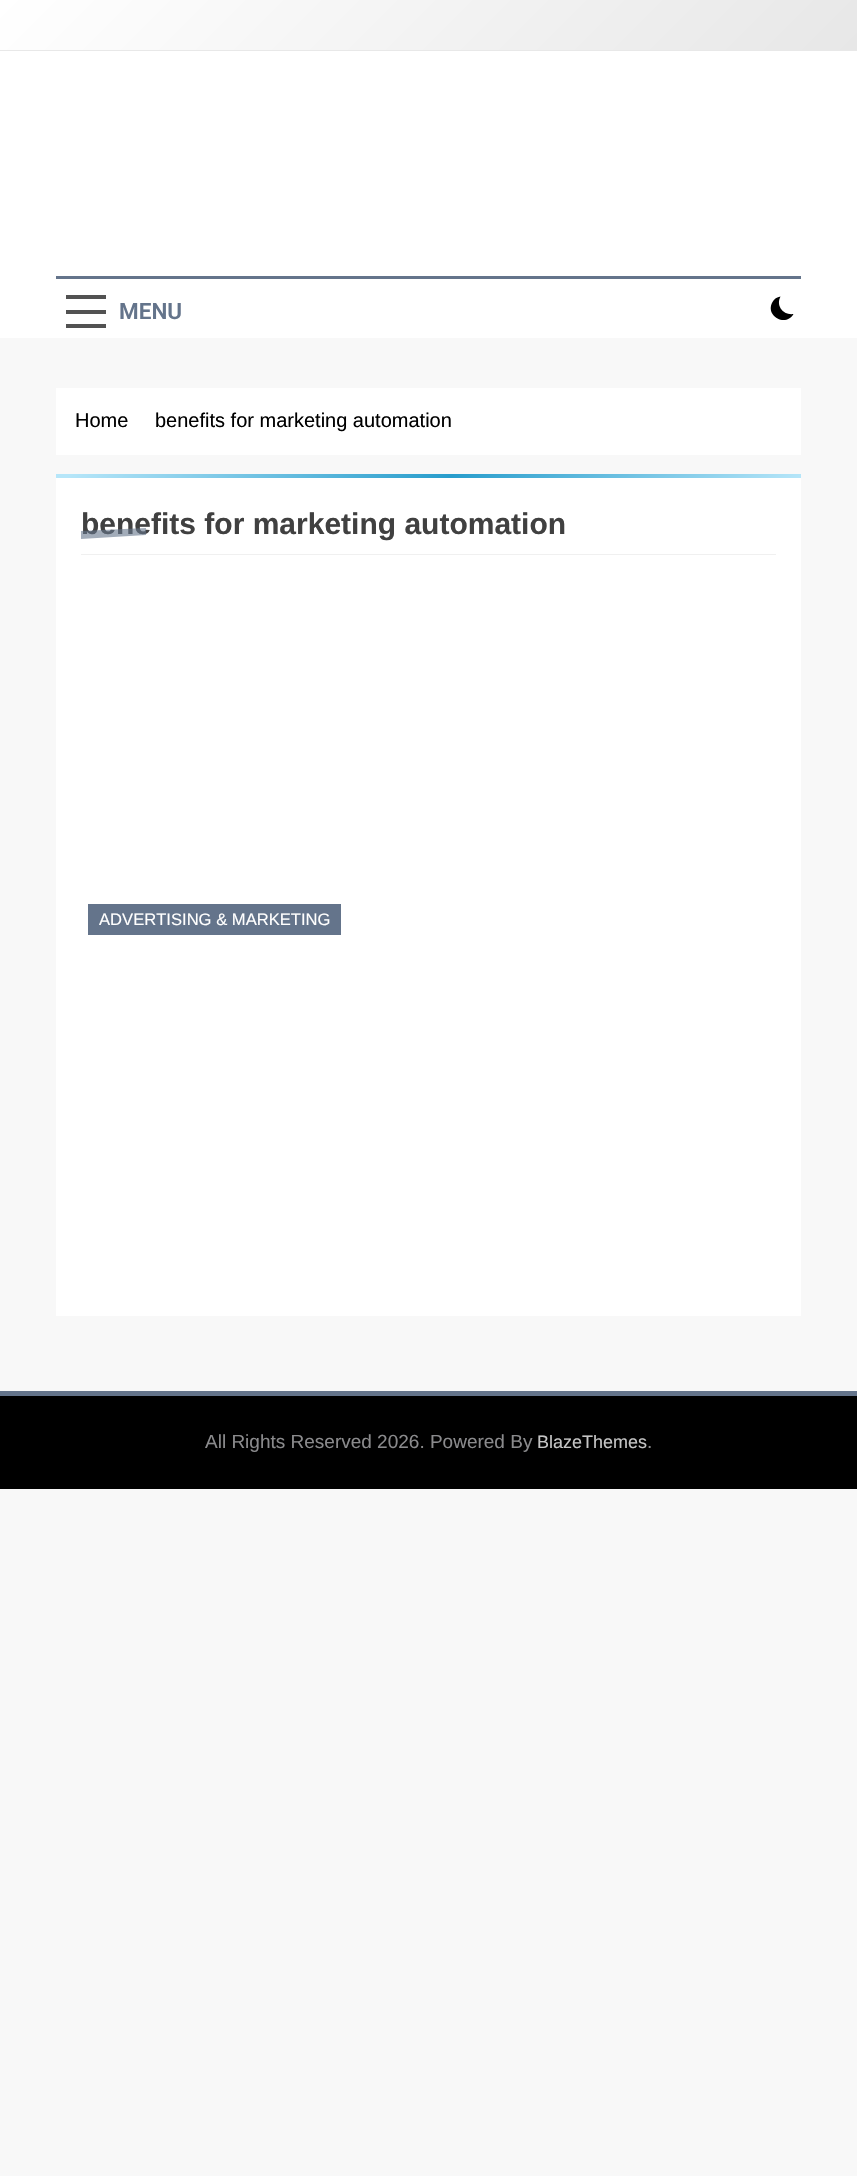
void draw(SkCanvas* canvas) {
	SkPaint paint;
	paint.setAntiAlias(true);
	auto svgPath = [&](const char* data, bool evenOdd = false) {
		SkPath result = *SkParsePath::FromSVGString(data);
		if (evenOdd) result.setFillType(SkPathFillType::kEvenOdd);
		return result;
	};
	canvas->clear(0xfff8f8f8);
	{
		const SkColor colors[] = {0xffffffff, 0xffe7e7e7};
		const float stops[] = {0, 1};
		const SkPoint ends[] = {{202, -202}, {656, 252}};
		paint.setShader(SkGradientShader::MakeLinear(ends, colors, stops, 2, SkTileMode::kClamp));
		paint.setAlpha(255);
	}
	canvas->drawRect(SkRect::MakeXYWH(0, 0, 857, 50), paint);
	paint.setShader(nullptr);
	paint.setColor(0xffe8e8e8);
	canvas->drawRect(SkRect::MakeXYWH(0, 50, 857, 1), paint);
	paint.setColor(0xffffffff);
	canvas->drawRect(SkRect::MakeXYWH(0, 51, 857, 287), paint);
	paint.setColor(0xff64748b);
	canvas->drawRect(SkRect::MakeXYWH(56, 276, 745, 3), paint);
	paint.setColor(0xff525252);
	canvas->drawRect(SkRect::MakeXYWH(66, 295, 40, 4), paint);
	canvas->drawRect(SkRect::MakeXYWH(66, 310, 40, 4), paint);
	canvas->drawRect(SkRect::MakeXYWH(66, 324, 40, 4), paint);
	SkFont f1(fontMgr->matchFamilyStyle("Roboto", SkFontStyle(600, SkFontStyle::kNormal_Width, SkFontStyle::kUpright_Slant)), 22.5);
	f1.setSubpixel(true);
	paint.setColor(0xff64748b);
	canvas->drawString("MENU", 119, 319, f1, paint);
	paint.setColor(0xff000000);
	canvas->drawPath(svgPath("M793.5 314C783.5 315.5 775.5 306 780.5 296.5C777 297 774 299 772.5 302C764.5 316 786 327.5 793.5 314Z"), paint);
	paint.setColor(0xffffffff);
	canvas->drawRect(SkRect::MakeXYWH(56, 388, 745, 67), paint);
	SkFont f2(fontMgr->matchFamilyStyle("Liberation Sans", SkFontStyle::Normal()), 20);
	f2.setSubpixel(true);
	paint.setColor(0xff000000);
	canvas->drawString("Home", 75, 427, f2, paint);
	canvas->drawString("benefits for marketing automation", 155, 427, f2, paint);
	paint.setColor(0xffffffff);
	canvas->drawRect(SkRect::MakeXYWH(56, 478, 745, 838), paint);
	{
		const SkColor colors[] = {0xffb6e6f9, 0xff289dcc, 0xffb6e6f9};
		const float stops[] = {0.02, 0.53, 1};
		const SkPoint ends[] = {{242, 288}, {616, 663}};
		paint.setShader(SkGradientShader::MakeLinear(ends, colors, stops, 3, SkTileMode::kClamp));
		paint.setAlpha(255);
	}
	canvas->drawRect(SkRect::MakeXYWH(56, 474, 745, 4), paint);
	paint.setShader(nullptr);
	paint.setColor(0xfff0f0f0);
	canvas->drawRect(SkRect::MakeXYWH(81, 554, 695, 1), paint);
	SkFont f3(fontMgr->matchFamilyStyle("Liberation Sans", SkFontStyle::Bold()), 30);
	f3.setSubpixel(true);
	paint.setColor(0xff404040);
	canvas->drawString("benefits for marketing automation", 81, 534, f3, paint);
	paint.setColor(0x9964748b);
	canvas->drawPath(svgPath("M81 531L146 528V535L81 539Z"), paint);
	paint.setColor(0xff64748b);
	canvas->drawRect(SkRect::MakeXYWH(88, 904, 253, 31), paint);
	SkFont f4(fontMgr->matchFamilyStyle("Liberation Sans", SkFontStyle::Normal()), 16.6);
	f4.setSubpixel(true);
	paint.setColor(0xffffffff);
	canvas->drawString("ADVERTISING & MARKETING", 99, 925, f4, paint);
	paint.setColor(0xff64748b);
	canvas->drawRect(SkRect::MakeXYWH(0, 1391, 857, 5), paint);
	paint.setColor(0xff000000);
	canvas->drawRect(SkRect::MakeXYWH(0, 1396, 857, 93), paint);
	SkFont f5(fontMgr->matchFamilyStyle("Liberation Sans", SkFontStyle::Normal()), 19);
	f5.setSubpixel(true);
	paint.setColor(0xff8a8a8c);
	canvas->drawString("All Rights Reserved 2026. Powered By", 205, 1448, f5, paint);
	SkFont f6(fontMgr->matchFamilyStyle("Liberation Sans", SkFontStyle::Normal()), 18);
	f6.setSubpixel(true);
	paint.setColor(0xffc5c5c5);
	canvas->drawString("BlazeThemes", 537, 1448, f6, paint);
	paint.setColor(0xff8a8a8c);
	canvas->drawString(".", 647, 1448, f5, paint);
}
